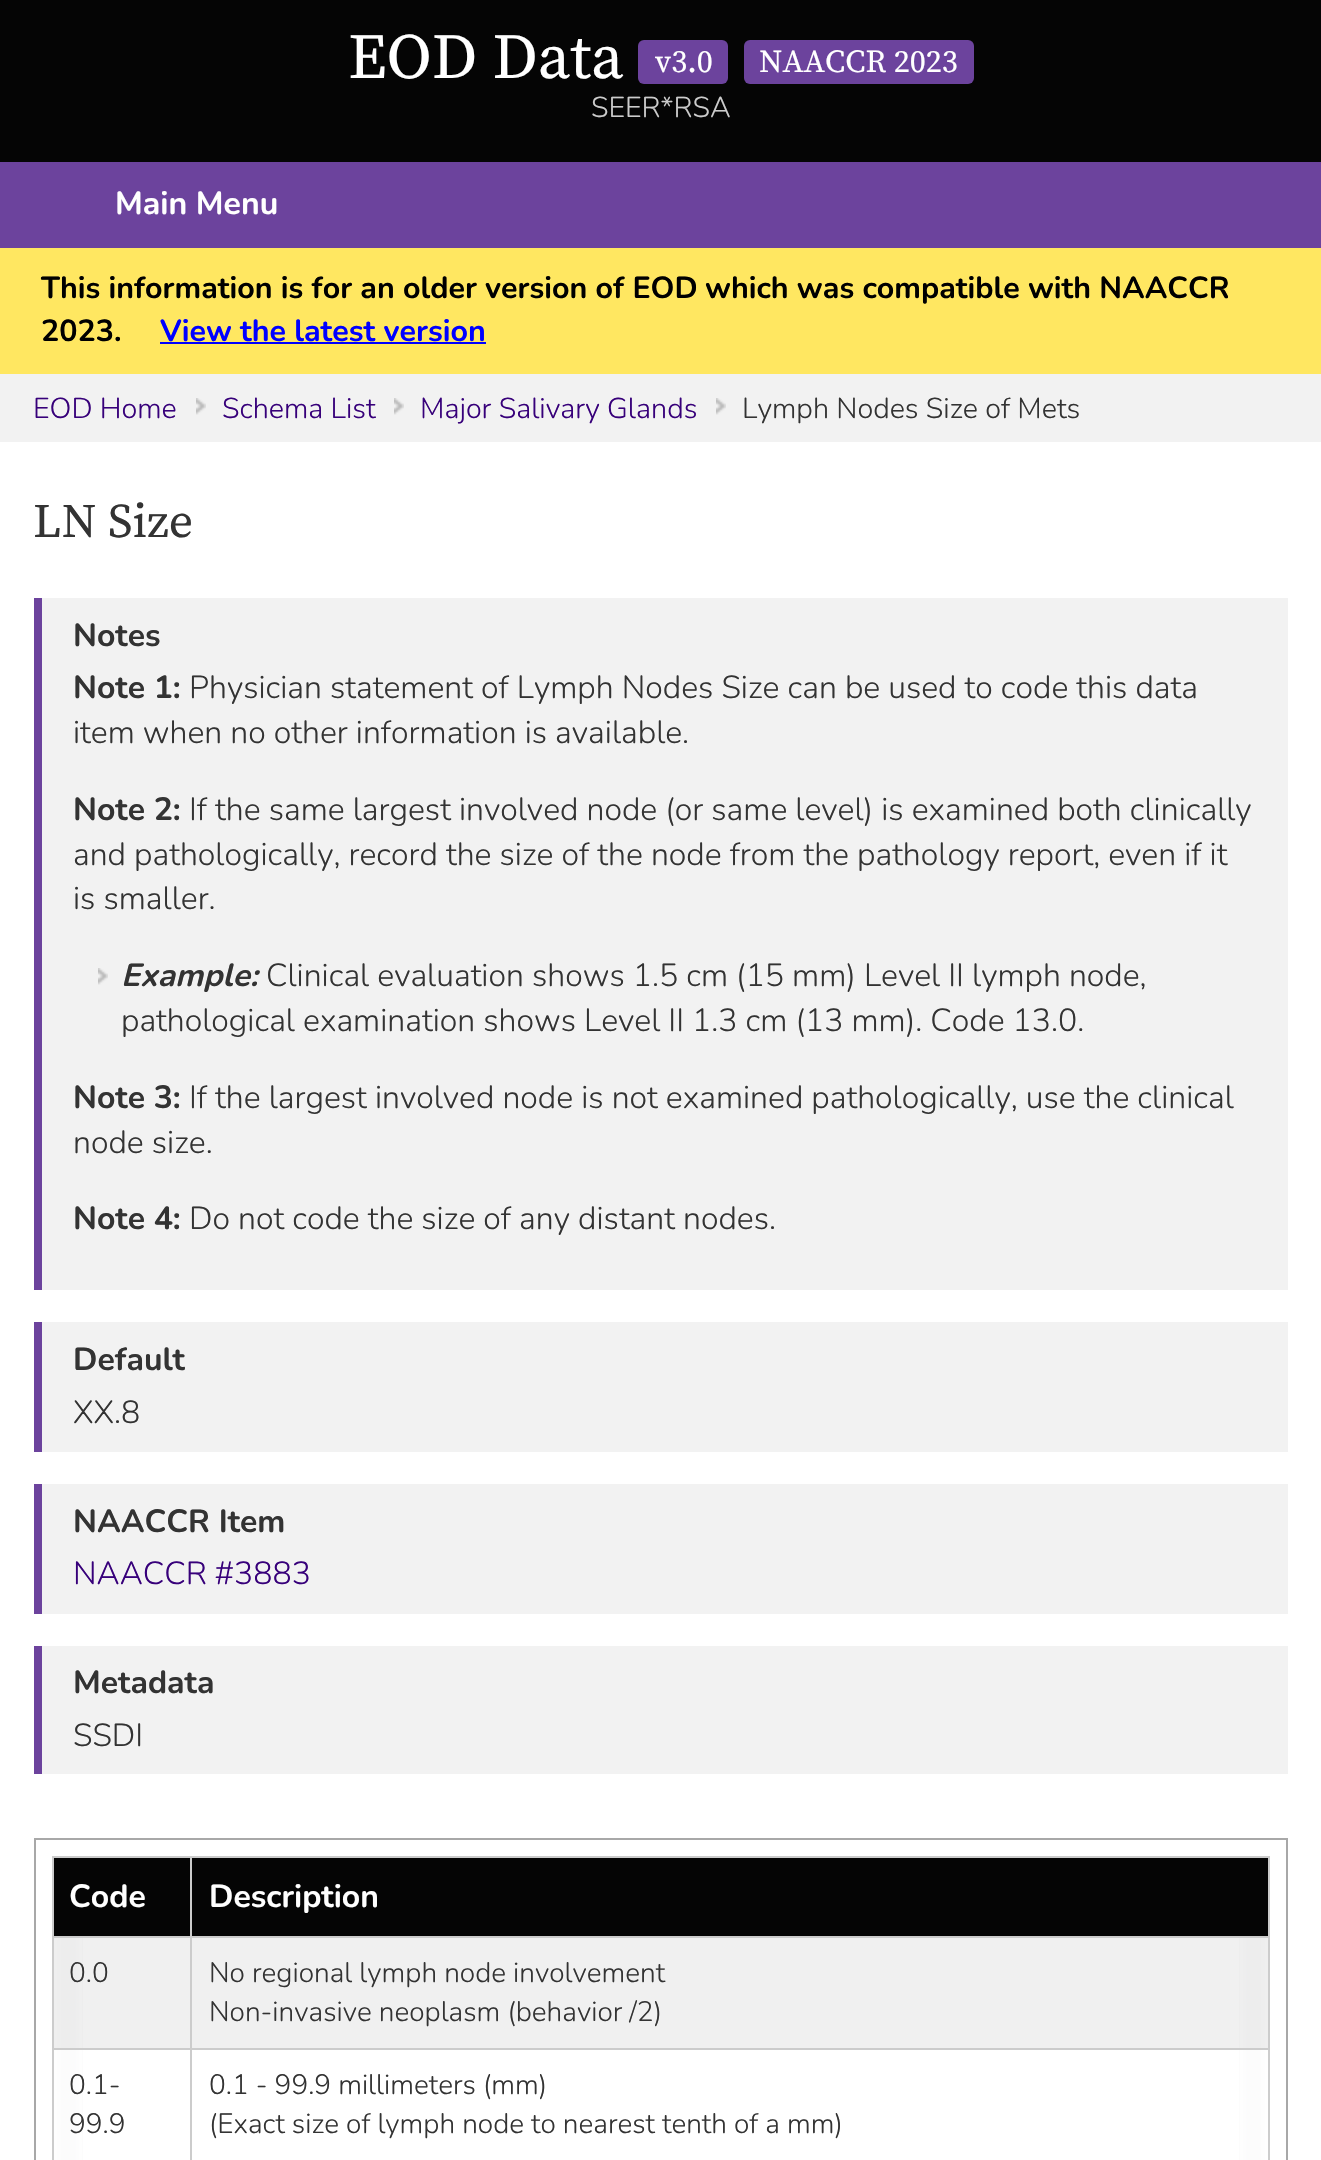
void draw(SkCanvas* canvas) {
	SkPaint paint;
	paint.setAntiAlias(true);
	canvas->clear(0xff050505);
	SkFont f1(fontMgr->matchFamilyStyle("Source Serif Pro", SkFontStyle::Normal()), 64);
	f1.setSubpixel(true);
	paint.setColor(0xffffffff);
	canvas->drawString("EOD Data", 348, 78, f1, paint);
	paint.setColor(0xff6c439d);
	canvas->drawRoundRect(SkRect::MakeXYWH(638, 40, 90, 44), 6, 6, paint);
	SkFont f2(fontMgr->matchFamilyStyle("Source Serif Pro", SkFontStyle::Normal()), 32);
	f2.setSubpixel(true);
	paint.setColor(0xffffffff);
	canvas->drawString("v3.0", 655, 72, f2, paint);
	paint.setColor(0xff6c439d);
	canvas->drawRoundRect(SkRect::MakeXYWH(744, 40, 230, 44), 6, 6, paint);
	paint.setColor(0xffffffff);
	canvas->drawString("NAACCR 2023", 759, 72, f2, paint);
	SkFont f3(fontMgr->matchFamilyStyle("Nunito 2", SkFontStyle(200, SkFontStyle::kNormal_Width, SkFontStyle::kUpright_Slant)), 28.75);
	f3.setSubpixel(true);
	paint.setColor(0xffcccccc);
	canvas->drawString("SEER*RSA", 591, 117, f3, paint);
	paint.setColor(0xff6c439d);
	canvas->drawRect(SkRect::MakeXYWH(0, 162, 1321, 86), paint);
	SkFont f4(fontMgr->matchFamilyStyle("Nunito", SkFontStyle(200, SkFontStyle::kNormal_Width, SkFontStyle::kUpright_Slant)), 32);
	f4.setSubpixel(true);
	paint.setColor(0xffffffff);
	canvas->drawString("Main Menu", 115, 214, f4, paint);
	paint.setColor(0xffffe761);
	canvas->drawRect(SkRect::MakeXYWH(0, 248, 1321, 126), paint);
	SkFont f5(fontMgr->matchFamilyStyle("Nunito", SkFontStyle(200, SkFontStyle::kNormal_Width, SkFontStyle::kUpright_Slant)), 30.4);
	f5.setSubpixel(true);
	paint.setColor(0xff000000);
	canvas->drawString("This information is for an older version of EOD", 41, 298, f5, paint);
	canvas->drawString("which was compatible with NAACCR", 705, 298, f5, paint);
	canvas->drawString("2023.", 41, 341, f5, paint);
	paint.setColor(0xff0000ff);
	canvas->drawString("View the latest version", 160, 341, f5, paint);
	canvas->drawRect(SkRect::MakeXYWH(160, 342, 326, 2), paint);
	paint.setColor(0xfff2f2f2);
	canvas->drawRect(SkRect::MakeXYWH(0, 374, 1321, 68), paint);
	canvas->drawImageRect(SkImages::DeferredFromEncodedData(SkData::MakeFromFileName("img1.png")), SkRect::MakeXYWH(196, 398, 10, 17), SkSamplingOptions());
	paint.setColor(0xff37007a);
	canvas->drawString("EOD Home", 33, 418, f3, paint);
	canvas->drawImageRect(SkImages::DeferredFromEncodedData(SkData::MakeFromFileName("img1.png")), SkRect::MakeXYWH(394, 398, 10, 17), SkSamplingOptions());
	canvas->drawString("Schema List", 222, 418, f3, paint);
	canvas->drawImageRect(SkImages::DeferredFromEncodedData(SkData::MakeFromFileName("img1.png")), SkRect::MakeXYWH(716, 398, 10, 17), SkSamplingOptions());
	canvas->drawString("Major Salivary Glands", 420, 418, f3, paint);
	paint.setColor(0xff333333);
	canvas->drawString("Lymph Nodes Size of Mets", 742, 418, f3, paint);
	paint.setColor(0xffffffff);
	canvas->drawRect(SkRect::MakeXYWH(0, 442, 1321, 1718), paint);
	SkFont f6(fontMgr->matchFamilyStyle("Source Serif Pro", SkFontStyle::Normal()), 48);
	f6.setSubpixel(true);
	paint.setColor(0xff333333);
	canvas->drawString("LN Size", 33, 537, f6, paint);
	paint.setColor(0xfff2f2f2);
	canvas->drawRect(SkRect::MakeXYWH(42, 598, 1246, 692), paint);
	paint.setColor(0xff6c439d);
	canvas->drawRect(SkRect::MakeXYWH(34, 598, 8, 692), paint);
	paint.setColor(0xff333333);
	canvas->drawString("Notes", 73, 646, f4, paint);
	canvas->drawString("Note 1:", 73, 698, f4, paint);
	SkFont f7(fontMgr->matchFamilyStyle("Nunito 2", SkFontStyle(200, SkFontStyle::kNormal_Width, SkFontStyle::kUpright_Slant)), 32);
	f7.setSubpixel(true);
	canvas->drawString("Physician statement of Lymph Nodes Size can be used to code this data", 189, 698, f7, paint);
	canvas->drawString("item when no other information is available.", 73, 743, f7, paint);
	canvas->drawString("Note 2:", 73, 820, f4, paint);
	canvas->drawString("If the same largest involved node (or same level) is examined both clinically", 189, 820, f7, paint);
	canvas->drawString("and pathologically, record the size of the node from the pathology report, even if it", 73, 865, f7, paint);
	canvas->drawString("is smaller.", 73, 909, f7, paint);
	canvas->drawImageRect(SkImages::DeferredFromEncodedData(SkData::MakeFromFileName("img1.png")), SkRect::MakeXYWH(98, 968, 10, 17), SkSamplingOptions());
	SkFont f8(fontMgr->matchFamilyStyle("Nunito", SkFontStyle(200, SkFontStyle::kNormal_Width, SkFontStyle::kItalic_Slant)), 32);
	f8.setSubpixel(true);
	canvas->drawString("Example:", 121, 986, f8, paint);
	canvas->drawString("Clinical evaluation shows 1.5 cm (15 mm) Level II lymph node,", 266, 986, f7, paint);
	canvas->drawString("pathological examination shows Level II 1.3 cm (13 mm). Code 13.0.", 121, 1031, f7, paint);
	canvas->drawString("Note 3:", 73, 1108, f4, paint);
	canvas->drawString("If the largest involved node is not examined pathologically, use the clinical", 189, 1108, f7, paint);
	canvas->drawString("node size.", 73, 1153, f7, paint);
	canvas->drawString("Note 4:", 73, 1229, f4, paint);
	canvas->drawString("Do not code the size of any distant nodes.", 189, 1229, f7, paint);
	paint.setColor(0xfff2f2f2);
	canvas->drawRect(SkRect::MakeXYWH(42, 1322, 1246, 130), paint);
	paint.setColor(0xff6c439d);
	canvas->drawRect(SkRect::MakeXYWH(34, 1322, 8, 130), paint);
	paint.setColor(0xff333333);
	canvas->drawString("Default", 73, 1370, f4, paint);
	canvas->drawString("XX.8", 73, 1423, f7, paint);
	paint.setColor(0xfff2f2f2);
	canvas->drawRect(SkRect::MakeXYWH(42, 1484, 1246, 130), paint);
	paint.setColor(0xff6c439d);
	canvas->drawRect(SkRect::MakeXYWH(34, 1484, 8, 130), paint);
	paint.setColor(0xff333333);
	canvas->drawString("NAACCR Item", 73, 1532, f4, paint);
	paint.setColor(0xff37007a);
	canvas->drawString("NAACCR #3883", 73, 1584, f7, paint);
	paint.setColor(0xfff2f2f2);
	canvas->drawRect(SkRect::MakeXYWH(42, 1646, 1246, 128), paint);
	paint.setColor(0xff6c439d);
	canvas->drawRect(SkRect::MakeXYWH(34, 1646, 8, 128), paint);
	paint.setColor(0xff333333);
	canvas->drawString("Metadata", 73, 1693, f4, paint);
	canvas->drawString("SSDI", 73, 1746, f7, paint);
	paint.setStroke(true);
	paint.setStrokeWidth(2);
	paint.setColor(0xffa8a8a8);
	canvas->drawRect(SkRect::MakeXYWH(35, 1839, 1252, 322), paint);
	paint.setStroke(false);
	{
		const SkColor colors[] = {0xffc3c3c5, 0xffffffff};
		const float stops[] = {0, 1};
		const SkPoint ends[] = {{1270, 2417}, {1238, 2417}};
		paint.setShader(SkGradientShader::MakeLinear(ends, colors, stops, 2, SkTileMode::kClamp));
		paint.setAlpha(255);
	}
	canvas->drawRect(SkRect::MakeXYWH(1239, 1938, 29, 222), paint);
	{
		const SkColor colors[] = {0xffc3c3c5, 0xffffffff};
		const float stops[] = {0, 1};
		const SkPoint ends[] = {{52, 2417}, {84, 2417}};
		paint.setShader(SkGradientShader::MakeLinear(ends, colors, stops, 2, SkTileMode::kClamp));
		paint.setAlpha(255);
	}
	canvas->drawRect(SkRect::MakeXYWH(54, 1938, 29, 222), paint);
	{
		const SkColor colors[] = {0xffffffff, 0x00ffffff};
		const float stops[] = {0, 1};
		const SkPoint ends[] = {{1270, 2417}, {1142, 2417}};
		paint.setShader(SkGradientShader::MakeLinear(ends, colors, stops, 2, SkTileMode::kClamp));
		paint.setAlpha(255);
	}
	canvas->drawRect(SkRect::MakeXYWH(1240, 1938, 28, 222), paint);
	{
		const SkColor colors[] = {0xffffffff, 0x00ffffff};
		const float stops[] = {0, 1};
		const SkPoint ends[] = {{52, 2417}, {180, 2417}};
		paint.setShader(SkGradientShader::MakeLinear(ends, colors, stops, 2, SkTileMode::kClamp));
		paint.setAlpha(255);
	}
	canvas->drawRect(SkRect::MakeXYWH(54, 1938, 28, 222), paint);
	paint.setShader(nullptr);
	paint.setColor(0xff050505);
	canvas->drawRect(SkRect::MakeXYWH(54, 1858, 136, 78), paint);
	paint.setColor(0xffcccccc);
	canvas->drawRect(SkRect::MakeXYWH(190, 1856, 1080, 2), paint);
	canvas->drawRect(SkRect::MakeXYWH(190, 1936, 1080, 2), paint);
	canvas->drawRect(SkRect::MakeXYWH(190, 2048, 1080, 2), paint);
	canvas->drawRect(SkRect::MakeXYWH(190, 2048, 2, 112), paint);
	canvas->drawRect(SkRect::MakeXYWH(52, 2048, 140, 2), paint);
	canvas->drawRect(SkRect::MakeXYWH(190, 1936, 2, 114), paint);
	canvas->drawRect(SkRect::MakeXYWH(52, 1936, 140, 2), paint);
	canvas->drawRect(SkRect::MakeXYWH(190, 1856, 2, 82), paint);
	canvas->drawRect(SkRect::MakeXYWH(52, 1856, 140, 2), paint);
	canvas->drawRect(SkRect::MakeXYWH(52, 2048, 2, 112), paint);
	canvas->drawRect(SkRect::MakeXYWH(52, 1936, 2, 114), paint);
	canvas->drawRect(SkRect::MakeXYWH(52, 1856, 2, 82), paint);
	paint.setColor(0xffffffff);
	canvas->drawString("Code", 69, 1907, f4, paint);
	paint.setColor(0xff050505);
	canvas->drawRect(SkRect::MakeXYWH(192, 1858, 1076, 78), paint);
	paint.setColor(0xffcccccc);
	canvas->drawRect(SkRect::MakeXYWH(1268, 2048, 2, 112), paint);
	canvas->drawRect(SkRect::MakeXYWH(1268, 1936, 2, 114), paint);
	canvas->drawRect(SkRect::MakeXYWH(1268, 1856, 2, 82), paint);
	paint.setColor(0xffffffff);
	canvas->drawString("Description", 209, 1907, f4, paint);
	paint.setColor(0x0f000000);
	canvas->drawRect(SkRect::MakeXYWH(54, 1938, 136, 110), paint);
	SkFont f9(fontMgr->matchFamilyStyle("Nunito 2", SkFontStyle(200, SkFontStyle::kNormal_Width, SkFontStyle::kUpright_Slant)), 28);
	f9.setSubpixel(true);
	paint.setColor(0xff333333);
	canvas->drawString("0.0", 69, 1982, f9, paint);
	paint.setColor(0x0f000000);
	canvas->drawRect(SkRect::MakeXYWH(192, 1938, 1076, 110), paint);
	paint.setColor(0xff333333);
	canvas->drawString("No regional lymph node involvement", 209, 1982, f9, paint);
	canvas->drawString("Non-invasive neoplasm (behavior /2)", 209, 2021, f9, paint);
	canvas->drawString("0.1-", 69, 2094, f9, paint);
	canvas->drawString("99.9", 69, 2133, f9, paint);
	canvas->drawString("0.1 - 99.9 millimeters (mm)", 209, 2094, f9, paint);
	canvas->drawString("(Exact size of lymph node to nearest tenth of a mm)", 209, 2133, f9, paint);
}
